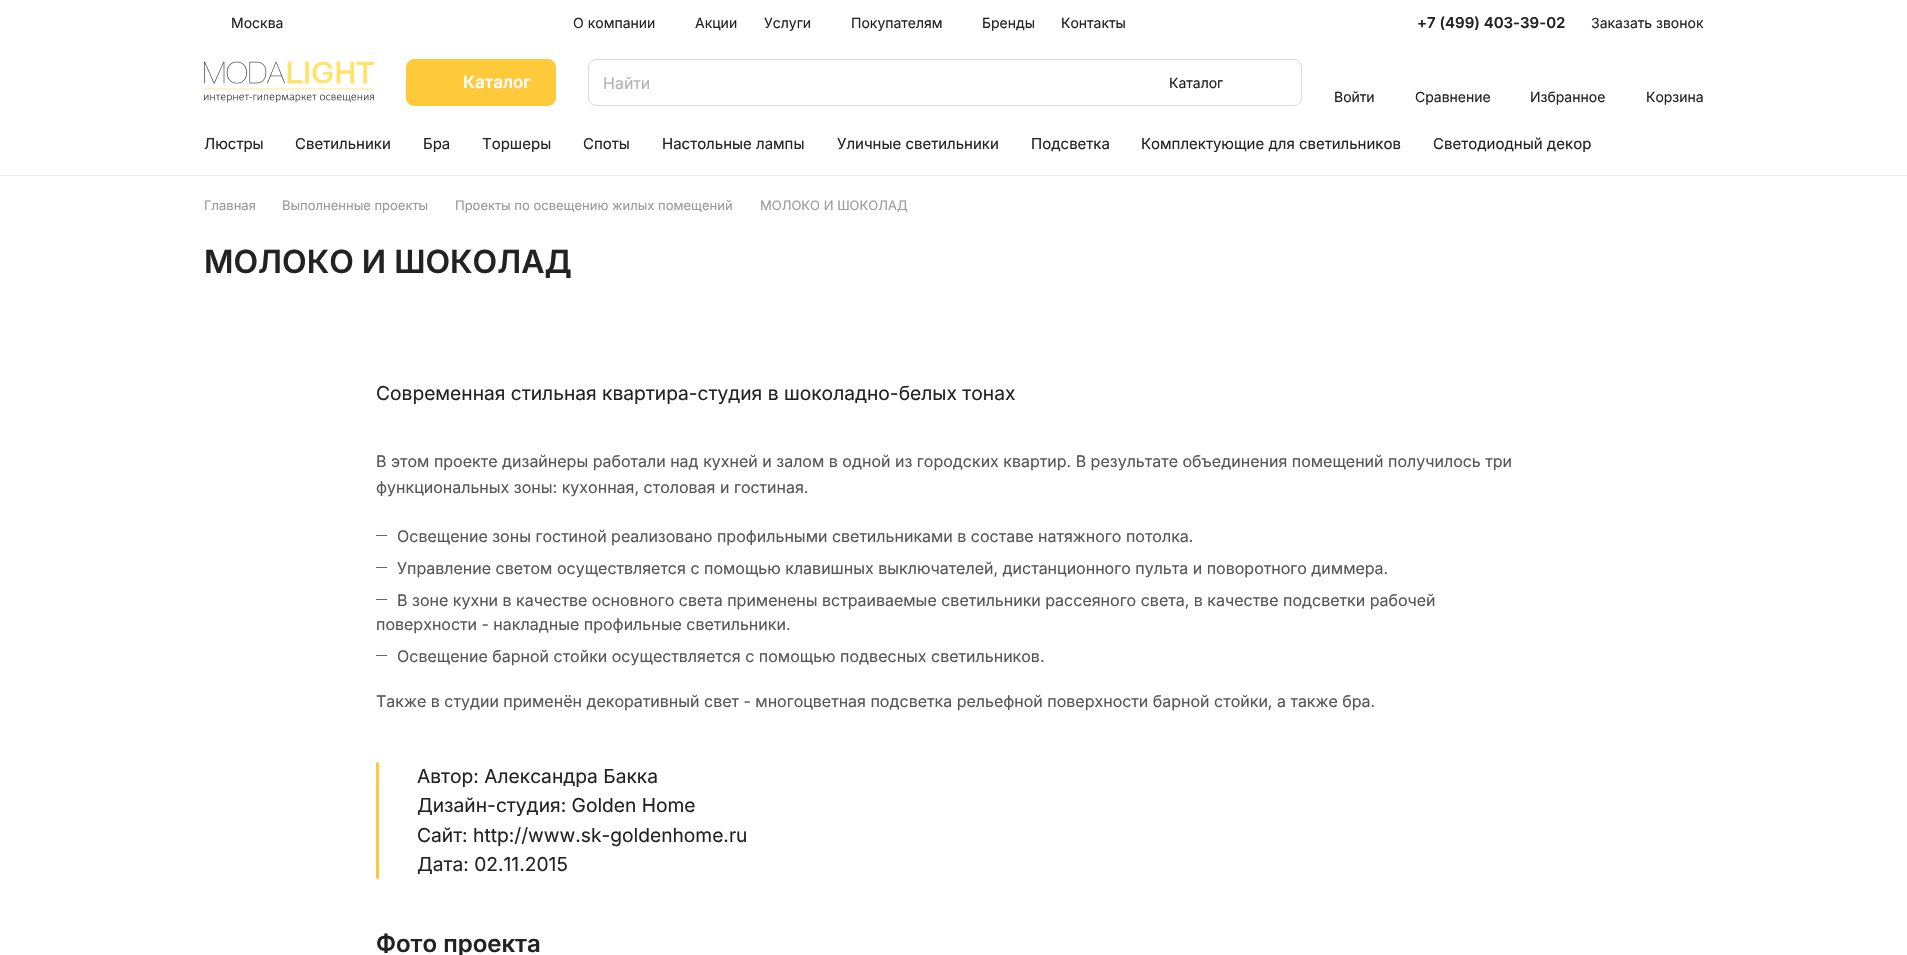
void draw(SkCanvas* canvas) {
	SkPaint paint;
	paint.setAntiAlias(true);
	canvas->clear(0xffffffff);
	paint.setColor(0xffededed);
	canvas->drawRect(SkRect::MakeXYWH(0, 175, 1907, 1), paint);
	SkFont f1(fontMgr->matchFamilyStyle("Inter", SkFontStyle::Normal()), 14);
	f1.setSubpixel(true);
	paint.setColor(0xff222222);
	canvas->drawString("Москва", 231, 28, f1, paint);
	canvas->drawString("О компании", 573, 28, f1, paint);
	canvas->drawString("Акции", 695, 28, f1, paint);
	canvas->drawString("Услуги", 764, 28, f1, paint);
	canvas->drawString("Покупателям", 851, 28, f1, paint);
	canvas->drawString("Бренды", 982, 28, f1, paint);
	canvas->drawString("Контакты", 1061, 28, f1, paint);
	SkFont f2(fontMgr->matchFamilyStyle("Inter", SkFontStyle(600, SkFontStyle::kNormal_Width, SkFontStyle::kUpright_Slant)), 15);
	f2.setSubpixel(true);
	canvas->drawString("+7 (499) 403-39-02", 1417, 28, f2, paint);
	canvas->drawString("Заказать звонок", 1591, 28, f1, paint);
	canvas->drawImageRect(SkImages::DeferredFromEncodedData(SkData::MakeFromFileName("img1.png")), SkRect::MakeXYWH(204, 61, 170, 42), SkSamplingOptions());
	paint.setColor(0xffffc93c);
	canvas->drawRoundRect(SkRect::MakeXYWH(406.5, 59.5, 149, 46), 7.5, 7.5, paint);
	paint.setStroke(true);
	paint.setStrokeWidth(1);
	canvas->drawRoundRect(SkRect::MakeXYWH(406.5, 59.5, 149, 46), 7.5, 7.5, paint);
	SkFont f3(fontMgr->matchFamilyStyle("Inter", SkFontStyle(600, SkFontStyle::kNormal_Width, SkFontStyle::kUpright_Slant)), 17);
	f3.setSubpixel(true);
	paint.setStroke(false);
	paint.setColor(0xffffffff);
	canvas->drawString("Каталог", 463, 88, f3, paint);
	paint.setStroke(true);
	paint.setColor(0xffdadada);
	canvas->drawRoundRect(SkRect::MakeXYWH(588.5, 59.5, 713, 46), 7.5, 7.5, paint);
	SkFont f4(fontMgr->matchFamilyStyle("Inter", SkFontStyle::Normal()), 16);
	f4.setSubpixel(true);
	paint.setStroke(false);
	paint.setColor(0xffb2b2b2);
	canvas->drawString("Найти", 603, 89, f4, paint);
	paint.setColor(0xff222222);
	canvas->drawString("Каталог", 1169, 88, f1, paint);
	canvas->drawString("Войти", 1334, 102, f1, paint);
	canvas->drawString("Сравнение", 1415, 102, f1, paint);
	canvas->drawString("Избранное", 1530, 102, f1, paint);
	canvas->drawString("Корзина", 1646, 102, f1, paint);
	SkFont f5(fontMgr->matchFamilyStyle("Inter", SkFontStyle::Normal()), 15);
	f5.setSubpixel(true);
	canvas->drawString("Люстры", 204, 149, f5, paint);
	canvas->drawString("Светильники", 295, 149, f5, paint);
	canvas->drawString("Бра", 423, 149, f5, paint);
	canvas->drawString("Торшеры", 482, 149, f5, paint);
	canvas->drawString("Споты", 583, 149, f5, paint);
	canvas->drawString("Настольные лампы", 662, 149, f5, paint);
	canvas->drawString("Уличные светильники", 837, 149, f5, paint);
	canvas->drawString("Подсветка", 1031, 149, f5, paint);
	canvas->drawString("Комплектующие для светильников", 1141, 149, f5, paint);
	canvas->drawString("Светодиодный декор", 1433, 149, f5, paint);
	SkFont f6(fontMgr->matchFamilyStyle("Inter", SkFontStyle::Normal()), 13);
	f6.setSubpixel(true);
	paint.setColor(0xff999999);
	canvas->drawString("Главная", 204, 210, f6, paint);
	canvas->drawString("Выполненные проекты", 282, 210, f6, paint);
	canvas->drawString("Проекты по освещению жилых помещений", 455, 210, f6, paint);
	canvas->drawString("МОЛОКО И ШОКОЛАД", 760, 210, f6, paint);
	SkFont f7(fontMgr->matchFamilyStyle("Inter", SkFontStyle(600, SkFontStyle::kNormal_Width, SkFontStyle::kUpright_Slant)), 32);
	f7.setSubpixel(true);
	paint.setColor(0xff222222);
	canvas->drawString("МОЛОКО И ШОКОЛАД", 204, 273, f7, paint);
	SkFont f8(fontMgr->matchFamilyStyle("Inter", SkFontStyle::Normal()), 19.2);
	f8.setSubpixel(true);
	canvas->drawString("Современная стильная квартира-студия в шоколадно-белых тонах", 376, 400, f8, paint);
	paint.setColor(0xff555555);
	canvas->drawString("В этом проекте дизайнеры работали над кухней и залом в одной из городских квартир. В результате объединения помещений получилось три", 376, 467, f4, paint);
	canvas->drawString("функциональных зоны: кухонная, столовая и гостиная.", 376, 493, f4, paint);
	paint.setColor(0xff666666);
	canvas->drawRect(SkRect::MakeXYWH(376, 535, 11, 1), paint);
	paint.setColor(0xff555555);
	canvas->drawString("Освещение зоны гостиной реализовано профильными светильниками в составе натяжного потолка.", 397, 542, f4, paint);
	paint.setColor(0xff666666);
	canvas->drawRect(SkRect::MakeXYWH(376, 567, 11, 1), paint);
	paint.setColor(0xff555555);
	canvas->drawString("Управление светом осуществляется с помощью клавишных выключателей, дистанционного пульта и поворотного диммера.", 397, 574, f4, paint);
	paint.setColor(0xff666666);
	canvas->drawRect(SkRect::MakeXYWH(376, 599, 11, 1), paint);
	paint.setColor(0xff555555);
	canvas->drawString("В зоне кухни в качестве основного света применены встраиваемые светильники рассеяного света, в качестве подсветки рабочей", 397, 606, f4, paint);
	canvas->drawString("поверхности - накладные профильные светильники.", 376, 630, f4, paint);
	paint.setColor(0xff666666);
	canvas->drawRect(SkRect::MakeXYWH(376, 655, 11, 1), paint);
	paint.setColor(0xff555555);
	canvas->drawString("Освещение барной стойки осуществляется с помощью подвесных светильников.", 397, 662, f4, paint);
	canvas->drawString("Также в студии применён декоративный свет - многоцветная подсветка рельефной поверхности барной стойки, а также бра.", 376, 707, f4, paint);
	paint.setColor(0xffffc93c);
	canvas->drawRoundRect(SkRect::MakeXYWH(376, 762, 3, 117), 1.5, 1.5, paint);
	paint.setColor(0xff222222);
	canvas->drawString("Автор: Александра Бакка", 417, 783, f8, paint);
	canvas->drawString("Дизайн-студия: Golden Home", 417, 812, f8, paint);
	canvas->drawString("Сайт: http://www.sk-goldenhome.ru", 417, 842, f8, paint);
	canvas->drawString("Дата: 02.11.2015", 417, 871, f8, paint);
	SkFont f9(fontMgr->matchFamilyStyle("Inter", SkFontStyle(600, SkFontStyle::kNormal_Width, SkFontStyle::kUpright_Slant)), 24);
	f9.setSubpixel(true);
	canvas->drawString("Фото проекта", 376, 952, f9, paint);
}
